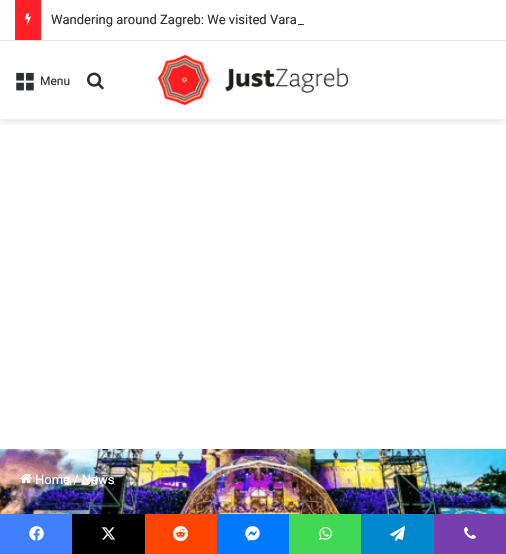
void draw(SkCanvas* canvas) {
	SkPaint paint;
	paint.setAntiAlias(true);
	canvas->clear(0xffffffff);
	canvas->save();
	canvas->clipRect(SkRect::MakeXYWH(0, 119, 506, 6));
	paint.setColor(0x1a000000);
	paint.setMaskFilter(SkMaskFilter::MakeBlur(kNormal_SkBlurStyle, 3.5));
	canvas->drawRect(SkRect::MakeXYWH(0, 44, 506, 78), paint);
	paint.setMaskFilter(nullptr);
	canvas->restore();
	paint.setColor(0xffe6e6e6);
	canvas->drawRect(SkRect::MakeXYWH(0, 40, 506, 1), paint);
	paint.setColor(0xffff2027);
	canvas->drawRect(SkRect::MakeXYWH(15, 0, 26, 40), paint);
	canvas->drawImageRect(SkImages::DeferredFromEncodedData(SkData::MakeFromFileName("img1.png")), SkRect::MakeXYWH(25, 13, 6, 12), SkSamplingOptions());
	SkFont f1(fontMgr->matchFamilyStyle("Roboto", SkFontStyle::Normal()), 13);
	f1.setSubpixel(true);
	paint.setColor(0xff2c2f34);
	canvas->drawString("Wandering around Zagreb: We visited Vara", 51, 24, f1, paint);
	canvas->drawString("_", 298, 24, f1, paint);
	canvas->drawImageRect(SkImages::DeferredFromEncodedData(SkData::MakeFromFileName("img2.png")), SkRect::MakeXYWH(16, 72, 18, 19), SkSamplingOptions());
	SkFont f2(fontMgr->matchFamilyStyle("Roboto", SkFontStyle::Normal()), 12);
	f2.setSubpixel(true);
	canvas->drawString("Menu", 40, 85, f2, paint);
	canvas->drawImageRect(SkImages::DeferredFromEncodedData(SkData::MakeFromFileName("img3.png")), SkRect::MakeXYWH(87, 72, 17, 18), SkSamplingOptions());
	canvas->drawImageRect(SkImages::DeferredFromEncodedData(SkData::MakeFromFileName("img4.png")), SkRect::MakeXYWH(158, 55, 190, 50), SkSamplingOptions());
	canvas->drawImageRect(SkImages::DeferredFromEncodedData(SkData::MakeFromFileName("img5.png")), SkRect::MakeXYWH(0, 449, 506, 65), SkSamplingOptions());
	canvas->drawImageRect(SkImages::DeferredFromEncodedData(SkData::MakeFromFileName("img6.png")), SkRect::MakeXYWH(20, 473, 12, 11), SkSamplingOptions());
	paint.setColor(0xfffefefe);
	canvas->drawString("Home / News", 35, 484, f1, paint);
	paint.setColor(0xff4080ff);
	canvas->drawRect(SkRect::MakeXYWH(0, 514, 72, 40), paint);
	canvas->drawImageRect(SkImages::DeferredFromEncodedData(SkData::MakeFromFileName("img7.png")), SkRect::MakeXYWH(29, 526, 15, 15), SkSamplingOptions());
	paint.setColor(0xff000000);
	canvas->drawRect(SkRect::MakeXYWH(72, 514, 73, 40), paint);
	canvas->drawImageRect(SkImages::DeferredFromEncodedData(SkData::MakeFromFileName("img8.png")), SkRect::MakeXYWH(101, 527, 15, 13), SkSamplingOptions());
	paint.setColor(0xffff4500);
	canvas->drawRect(SkRect::MakeXYWH(145, 514, 72, 40), paint);
	canvas->drawImageRect(SkImages::DeferredFromEncodedData(SkData::MakeFromFileName("img9.png")), SkRect::MakeXYWH(173, 526, 15, 16), SkSamplingOptions());
	paint.setColor(0xff0078ff);
	canvas->drawRect(SkRect::MakeXYWH(217, 514, 72, 40), paint);
	canvas->drawImageRect(SkImages::DeferredFromEncodedData(SkData::MakeFromFileName("img10.png")), SkRect::MakeXYWH(245, 526, 15, 15), SkSamplingOptions());
	paint.setColor(0xff43d854);
	canvas->drawRect(SkRect::MakeXYWH(289, 514, 72, 40), paint);
	canvas->drawImageRect(SkImages::DeferredFromEncodedData(SkData::MakeFromFileName("img11.png")), SkRect::MakeXYWH(319, 527, 13, 13), SkSamplingOptions());
	paint.setColor(0xff0088cc);
	canvas->drawRect(SkRect::MakeXYWH(361, 514, 73, 40), paint);
	canvas->drawImageRect(SkImages::DeferredFromEncodedData(SkData::MakeFromFileName("img12.png")), SkRect::MakeXYWH(390, 526, 15, 15), SkSamplingOptions());
	paint.setColor(0xff773ead);
	canvas->drawRect(SkRect::MakeXYWH(434, 514, 72, 40), paint);
	canvas->drawImageRect(SkImages::DeferredFromEncodedData(SkData::MakeFromFileName("img13.png")), SkRect::MakeXYWH(464, 527, 12, 12), SkSamplingOptions());
}
